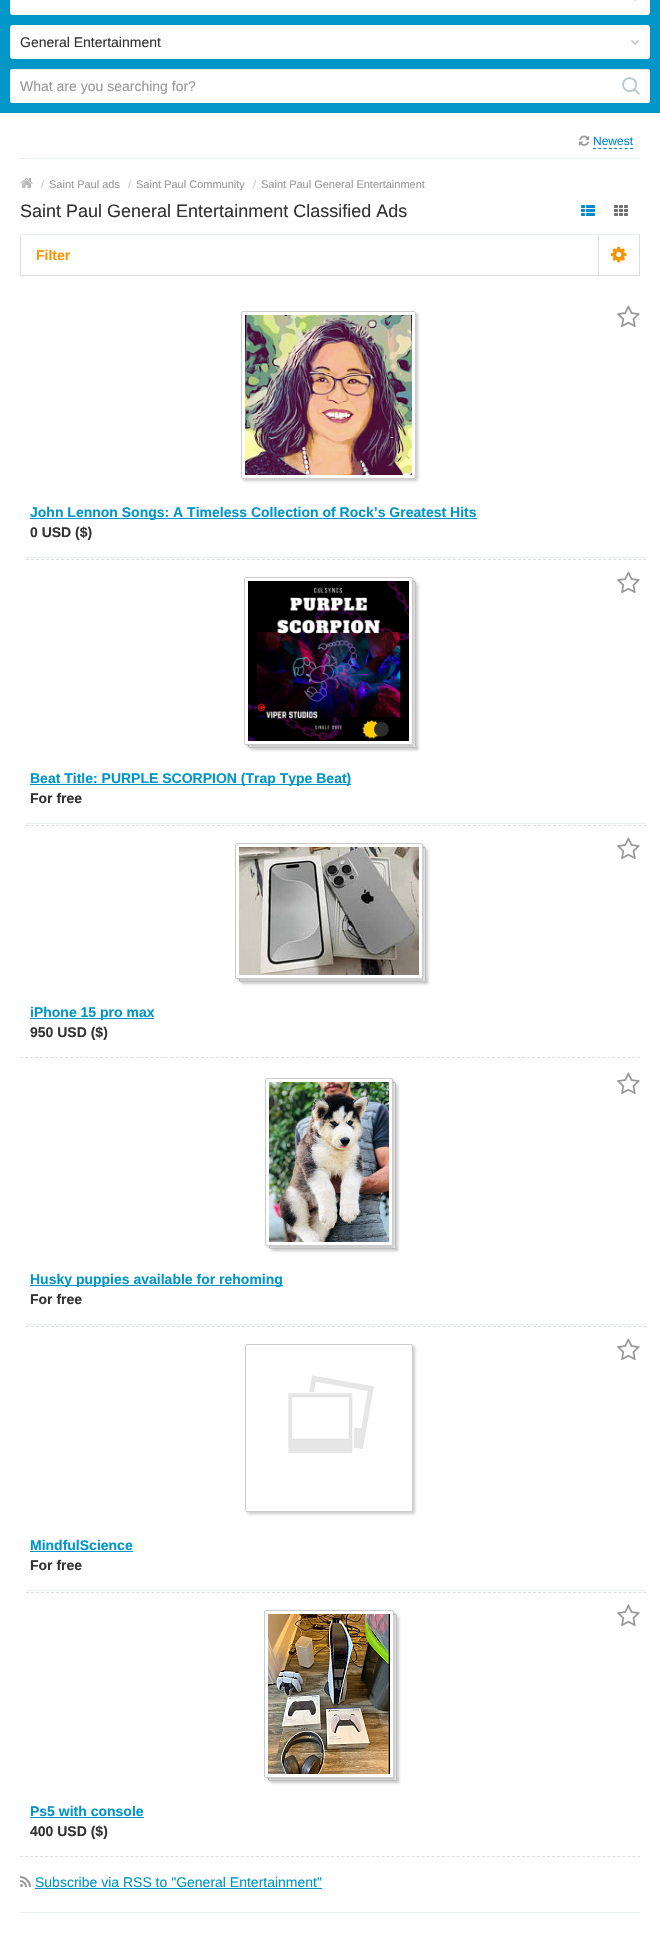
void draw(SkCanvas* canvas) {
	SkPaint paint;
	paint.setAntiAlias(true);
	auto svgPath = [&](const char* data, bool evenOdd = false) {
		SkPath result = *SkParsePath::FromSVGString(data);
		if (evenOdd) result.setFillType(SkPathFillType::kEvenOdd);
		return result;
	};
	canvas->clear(0xffffffff);
	paint.setColor(0xff0096c7);
	canvas->drawRect(SkRect::MakeXYWH(0, 0, 660, 113), paint);
	paint.setColor(0xffffffff);
	canvas->drawRoundRect(SkRect::MakeXYWH(10, -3, 640, 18), 3, 3, paint);
	canvas->drawImageRect(SkImages::DeferredFromEncodedData(SkData::MakeFromFileName("img1.png")), SkRect::MakeXYWH(634, 0, 2, 1), SkSamplingOptions());
	canvas->drawRoundRect(SkRect::MakeXYWH(10, 25, 640, 34), 3, 3, paint);
	SkFont f1(fontMgr->matchFamilyStyle("Liberation Sans", SkFontStyle::Normal()), 14);
	f1.setSubpixel(true);
	paint.setColor(0xff333333);
	canvas->drawString("General Entertainment", 20, 47, f1, paint);
	canvas->drawImageRect(SkImages::DeferredFromEncodedData(SkData::MakeFromFileName("img2.png")), SkRect::MakeXYWH(631, 40, 9, 5), SkSamplingOptions());
	paint.setColor(0xffffffff);
	canvas->drawRoundRect(SkRect::MakeXYWH(10, 69, 640, 34), 2, 2, paint);
	paint.setColor(0x12000000);
	canvas->drawPath(svgPath("M12 70H648C649 70 650 71 650 72C650 71 650 69 648 69H12C10 69 10 71 10 72C10 71 11 70 12 70Z"), paint);
	paint.setColor(0xff999999);
	canvas->drawString("What are you searching for?", 20, 91, f1, paint);
	canvas->drawImageRect(SkImages::DeferredFromEncodedData(SkData::MakeFromFileName("img3.png")), SkRect::MakeXYWH(622, 77, 18, 18), SkSamplingOptions());
	paint.setColor(0xffe8edef);
	canvas->drawRect(SkRect::MakeXYWH(20, 158, 620, 1), paint);
	canvas->drawImageRect(SkImages::DeferredFromEncodedData(SkData::MakeFromFileName("img4.png")), SkRect::MakeXYWH(579, 135, 11, 11), SkSamplingOptions());
	SkFont f2(fontMgr->matchFamilyStyle("Liberation Sans", SkFontStyle::Normal()), 12);
	f2.setSubpixel(true);
	paint.setColor(0xff0088cc);
	canvas->drawString("Newest", 593, 145, f2, paint);
	paint.setStroke(true);
	paint.setStrokeWidth(1);
	paint.setPathEffect(SkDashPathEffect::Make({{3, 2.29f}}, 0));
	canvas->drawPath(svgPath("M593 148.5H633"), paint);
	paint.setPathEffect(nullptr);
	canvas->drawImageRect(SkImages::DeferredFromEncodedData(SkData::MakeFromFileName("img5.png")), SkRect::MakeXYWH(20, 178, 13, 10), SkSamplingOptions());
	paint.setColor(0xffdddddd);
	canvas->drawRect(SkRect::MakeXYWH(20.5, 234.5, 619, 41), paint);
	canvas->save();
	canvas->clipRect(SkRect::MakeXYWH(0, 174, 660, 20));
	paint.setStroke(false);
	paint.setColor(0xffffffff);
	paint.setMaskFilter(SkMaskFilter::MakeBlur(kNormal_SkBlurStyle, 10.5));
	canvas->drawRect(SkRect::MakeXYWH(-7, 162, 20, 40), paint);
	paint.setMaskFilter(nullptr);
	canvas->restore();
	SkFont f3(fontMgr->matchFamilyStyle("Liberation Sans", SkFontStyle::Normal()), 11);
	f3.setSubpixel(true);
	paint.setColor(0xffcccccc);
	canvas->drawString("/", 41, 188, f3, paint);
	paint.setColor(0xff999999);
	canvas->drawString("Saint Paul ads", 49, 188, f3, paint);
	paint.setColor(0xffcccccc);
	canvas->drawString("/", 128, 188, f3, paint);
	paint.setColor(0xff999999);
	canvas->drawString("Saint Paul Community", 136, 188, f3, paint);
	paint.setColor(0xffcccccc);
	canvas->drawString("/", 253, 188, f3, paint);
	paint.setColor(0xff999999);
	canvas->drawString("Saint Paul General Entertainment", 261, 188, f3, paint);
	paint.setColor(0xffe8edef);
	canvas->drawRect(SkRect::MakeXYWH(20, 234, 620, 1), paint);
	SkFont f4(fontMgr->matchFamilyStyle("Liberation Sans", SkFontStyle::Normal()), 18);
	f4.setSubpixel(true);
	paint.setColor(0xff333333);
	canvas->drawString("Saint Paul General Entertainment Classified Ads", 20, 217, f4, paint);
	canvas->drawImageRect(SkImages::DeferredFromEncodedData(SkData::MakeFromFileName("img6.png")), SkRect::MakeXYWH(581, 205, 14, 11), SkSamplingOptions());
	canvas->drawImageRect(SkImages::DeferredFromEncodedData(SkData::MakeFromFileName("img7.png")), SkRect::MakeXYWH(614, 205, 14, 11), SkSamplingOptions());
	SkFont f5(fontMgr->matchFamilyStyle("Liberation Sans", SkFontStyle::Bold()), 14);
	f5.setSubpixel(true);
	paint.setColor(0xfff89406);
	canvas->drawString("Filter", 36, 260, f5, paint);
	paint.setColor(0xffdddddd);
	canvas->drawRect(SkRect::MakeXYWH(598, 235, 1, 40), paint);
	canvas->drawImageRect(SkImages::DeferredFromEncodedData(SkData::MakeFromFileName("img8.png")), SkRect::MakeXYWH(611, 246, 16, 17), SkSamplingOptions());
	paint.setStroke(true);
	paint.setPathEffect(SkDashPathEffect::Make({{3, 2.02f}}, 0));
	canvas->drawPath(svgPath("M20 1057.5H640"), paint);
	paint.setPathEffect(nullptr);
	paint.setStroke(false);
	paint.setColor(0x33000000);
	paint.setMaskFilter(SkMaskFilter::MakeBlur(kNormal_SkBlurStyle, 1.5));
	canvas->drawRoundRect(SkRect::MakeXYWH(243, 313, 175, 168), 2, 2, paint);
	paint.setMaskFilter(nullptr);
	paint.setColor(0xffffffff);
	canvas->drawRoundRect(SkRect::MakeXYWH(241.5, 311.5, 174, 167), 1.5, 1.5, paint);
	paint.setStroke(true);
	paint.setColor(0xffcccccc);
	canvas->drawRoundRect(SkRect::MakeXYWH(241.5, 311.5, 174, 167), 1.5, 1.5, paint);
	canvas->drawImageRect(SkImages::DeferredFromEncodedData(SkData::MakeFromFileName("img9.png")), SkRect::MakeXYWH(245, 315, 167, 160), SkSamplingOptions());
	canvas->drawImageRect(SkImages::DeferredFromEncodedData(SkData::MakeFromFileName("img10.png")), SkRect::MakeXYWH(617, 305, 23, 23), SkSamplingOptions());
	paint.setStroke(false);
	paint.setColor(0xff0096c7);
	canvas->drawRect(SkRect::MakeXYWH(30, 518, 447, 1), paint);
	canvas->drawString("John Lennon Songs: A Timeless Collection of Rock’s Greatest Hits", 30, 517, f5, paint);
	paint.setColor(0xff333333);
	canvas->drawString("0 USD ($)", 30, 537, f5, paint);
	paint.setColor(0xffe8edef);
	canvas->drawRect(SkRect::MakeXYWH(26, 557, 620, 1), paint);
	paint.setStroke(true);
	paint.setColor(0xffdddddd);
	paint.setPathEffect(SkDashPathEffect::Make({{3, 2.02f}}, 0));
	canvas->drawPath(svgPath("M26 559.5H646"), paint);
	paint.setPathEffect(nullptr);
	paint.setStroke(false);
	paint.setColor(0x33000000);
	paint.setMaskFilter(SkMaskFilter::MakeBlur(kNormal_SkBlurStyle, 1.5));
	canvas->drawRoundRect(SkRect::MakeXYWH(250, 747, 168, 3), 2, 2, paint);
	paint.setMaskFilter(nullptr);
	paint.setColor(0xffcccccc);
	canvas->drawRect(SkRect::MakeXYWH(249, 747, 166, 1), paint);
	paint.setColor(0x33000000);
	paint.setMaskFilter(SkMaskFilter::MakeBlur(kNormal_SkBlurStyle, 1.5));
	canvas->drawRoundRect(SkRect::MakeXYWH(415, 583, 3, 166), 2, 2, paint);
	paint.setMaskFilter(nullptr);
	paint.setColor(0xffffffff);
	canvas->drawPath(svgPath("M413 582H415V745C415 747 414 747 413 747Z"), paint);
	paint.setColor(0xffcccccc);
	canvas->drawRect(SkRect::MakeXYWH(413, 581, 2, 1), paint);
	canvas->drawRect(SkRect::MakeXYWH(415, 582, 1, 164), paint);
	canvas->drawRect(SkRect::MakeXYWH(248, 745, 1, 2), paint);
	paint.setColor(0x33000000);
	paint.setMaskFilter(SkMaskFilter::MakeBlur(kNormal_SkBlurStyle, 1.5));
	canvas->drawRoundRect(SkRect::MakeXYWH(246, 579, 169, 168), 2, 2, paint);
	paint.setMaskFilter(nullptr);
	paint.setColor(0xffffffff);
	canvas->drawRoundRect(SkRect::MakeXYWH(244.5, 577.5, 168, 167), 1.5, 1.5, paint);
	paint.setStroke(true);
	paint.setColor(0xffcccccc);
	canvas->drawRoundRect(SkRect::MakeXYWH(244.5, 577.5, 168, 167), 1.5, 1.5, paint);
	canvas->drawImageRect(SkImages::DeferredFromEncodedData(SkData::MakeFromFileName("img11.png")), SkRect::MakeXYWH(248, 581, 161, 160), SkSamplingOptions());
	canvas->drawImageRect(SkImages::DeferredFromEncodedData(SkData::MakeFromFileName("img10.png")), SkRect::MakeXYWH(617, 571, 23, 23), SkSamplingOptions());
	paint.setStroke(false);
	paint.setColor(0xff0096c7);
	canvas->drawRect(SkRect::MakeXYWH(30, 784, 321, 1), paint);
	canvas->drawString("Beat Title: PURPLE SCORPION (Trap Type Beat)", 30, 783, f5, paint);
	paint.setColor(0xff333333);
	canvas->drawString("For free", 30, 803, f5, paint);
	paint.setColor(0xffe8edef);
	canvas->drawRect(SkRect::MakeXYWH(26, 823, 620, 1), paint);
	paint.setStroke(true);
	paint.setColor(0xffdddddd);
	paint.setPathEffect(SkDashPathEffect::Make({{3, 2.02f}}, 0));
	canvas->drawPath(svgPath("M26 825.5H646"), paint);
	paint.setPathEffect(nullptr);
	paint.setStroke(false);
	paint.setColor(0x33000000);
	paint.setMaskFilter(SkMaskFilter::MakeBlur(kNormal_SkBlurStyle, 1.5));
	canvas->drawRoundRect(SkRect::MakeXYWH(241, 981, 187, 3), 2, 2, paint);
	paint.setMaskFilter(nullptr);
	paint.setColor(0xffcccccc);
	canvas->drawRect(SkRect::MakeXYWH(240, 981, 185, 1), paint);
	paint.setColor(0x33000000);
	paint.setMaskFilter(SkMaskFilter::MakeBlur(kNormal_SkBlurStyle, 1.5));
	canvas->drawRoundRect(SkRect::MakeXYWH(425, 849, 3, 134), 2, 2, paint);
	paint.setMaskFilter(nullptr);
	paint.setColor(0xffffffff);
	canvas->drawPath(svgPath("M423 848L425 849V979C425 981 424 981 423 981Z"), paint);
	paint.setColor(0xffcccccc);
	canvas->drawRect(SkRect::MakeXYWH(423, 847, 2, 1), paint);
	canvas->drawRect(SkRect::MakeXYWH(425, 848, 1, 132), paint);
	canvas->drawRect(SkRect::MakeXYWH(239, 979, 1, 2), paint);
	paint.setColor(0x33000000);
	paint.setMaskFilter(SkMaskFilter::MakeBlur(kNormal_SkBlurStyle, 1.5));
	canvas->drawRoundRect(SkRect::MakeXYWH(237, 845, 188, 136), 2, 2, paint);
	paint.setMaskFilter(nullptr);
	paint.setColor(0xffffffff);
	canvas->drawRoundRect(SkRect::MakeXYWH(235.5, 843.5, 187, 135), 1.5, 1.5, paint);
	paint.setStroke(true);
	paint.setColor(0xffcccccc);
	canvas->drawRoundRect(SkRect::MakeXYWH(235.5, 843.5, 187, 135), 1.5, 1.5, paint);
	canvas->drawImageRect(SkImages::DeferredFromEncodedData(SkData::MakeFromFileName("img12.png")), SkRect::MakeXYWH(239, 847, 180, 128), SkSamplingOptions());
	canvas->drawImageRect(SkImages::DeferredFromEncodedData(SkData::MakeFromFileName("img10.png")), SkRect::MakeXYWH(617, 837, 23, 23), SkSamplingOptions());
	paint.setStroke(false);
	paint.setColor(0xff0096c7);
	canvas->drawRect(SkRect::MakeXYWH(30, 1018, 124, 1), paint);
	canvas->drawString("iPhone 15 pro max", 30, 1017, f5, paint);
	paint.setColor(0xff333333);
	canvas->drawString("950 USD ($)", 30, 1037, f5, paint);
	paint.setStroke(true);
	paint.setColor(0xffdddddd);
	paint.setPathEffect(SkDashPathEffect::Make({{3, 2.02f}}, 0));
	canvas->drawPath(svgPath("M20 1856.5H640"), paint);
	paint.setPathEffect(nullptr);
	paint.setStroke(false);
	paint.setColor(0x33000000);
	paint.setMaskFilter(SkMaskFilter::MakeBlur(kNormal_SkBlurStyle, 1.5));
	canvas->drawRoundRect(SkRect::MakeXYWH(271, 1248, 127, 3), 2, 2, paint);
	paint.setMaskFilter(nullptr);
	paint.setColor(0xffcccccc);
	canvas->drawRect(SkRect::MakeXYWH(270, 1248, 125, 1), paint);
	paint.setColor(0x33000000);
	paint.setMaskFilter(SkMaskFilter::MakeBlur(kNormal_SkBlurStyle, 1.5));
	canvas->drawRoundRect(SkRect::MakeXYWH(395, 1084, 3, 166), 2, 2, paint);
	paint.setMaskFilter(nullptr);
	paint.setColor(0xffffffff);
	canvas->drawPath(svgPath("M393 1083H395V1246C395 1248 394 1248 393 1248Z"), paint);
	paint.setColor(0xffcccccc);
	canvas->drawRect(SkRect::MakeXYWH(393, 1082, 2, 1), paint);
	canvas->drawRect(SkRect::MakeXYWH(395, 1083, 1, 164), paint);
	canvas->drawRect(SkRect::MakeXYWH(269, 1246, 1, 2), paint);
	paint.setColor(0x33000000);
	paint.setMaskFilter(SkMaskFilter::MakeBlur(kNormal_SkBlurStyle, 1.5));
	canvas->drawRoundRect(SkRect::MakeXYWH(267, 1080, 128, 168), 2, 2, paint);
	paint.setMaskFilter(nullptr);
	paint.setColor(0xffffffff);
	canvas->drawRoundRect(SkRect::MakeXYWH(265.5, 1078.5, 127, 167), 1.5, 1.5, paint);
	paint.setStroke(true);
	paint.setColor(0xffcccccc);
	canvas->drawRoundRect(SkRect::MakeXYWH(265.5, 1078.5, 127, 167), 1.5, 1.5, paint);
	canvas->drawImageRect(SkImages::DeferredFromEncodedData(SkData::MakeFromFileName("img13.png")), SkRect::MakeXYWH(269, 1082, 120, 160), SkSamplingOptions());
	canvas->drawImageRect(SkImages::DeferredFromEncodedData(SkData::MakeFromFileName("img10.png")), SkRect::MakeXYWH(617, 1072, 23, 23), SkSamplingOptions());
	paint.setStroke(false);
	paint.setColor(0xff0096c7);
	canvas->drawRect(SkRect::MakeXYWH(30, 1285, 253, 1), paint);
	canvas->drawString("Husky puppies available for rehoming", 30, 1284, f5, paint);
	paint.setColor(0xff333333);
	canvas->drawString("For free", 30, 1304, f5, paint);
	paint.setColor(0xffe8edef);
	canvas->drawRect(SkRect::MakeXYWH(26, 1324, 620, 1), paint);
	paint.setStroke(true);
	paint.setColor(0xffdddddd);
	paint.setPathEffect(SkDashPathEffect::Make({{3, 2.02f}}, 0));
	canvas->drawPath(svgPath("M26 1326.5H646"), paint);
	paint.setPathEffect(nullptr);
	paint.setStroke(false);
	paint.setColor(0x33000000);
	paint.setMaskFilter(SkMaskFilter::MakeBlur(kNormal_SkBlurStyle, 1.5));
	canvas->drawRoundRect(SkRect::MakeXYWH(247, 1346, 168, 168), 2, 2, paint);
	paint.setMaskFilter(nullptr);
	paint.setColor(0xffffffff);
	canvas->drawRoundRect(SkRect::MakeXYWH(245.5, 1344.5, 167, 167), 1.5, 1.5, paint);
	paint.setStroke(true);
	paint.setColor(0xffcccccc);
	canvas->drawRoundRect(SkRect::MakeXYWH(245.5, 1344.5, 167, 167), 1.5, 1.5, paint);
	canvas->drawImageRect(SkImages::DeferredFromEncodedData(SkData::MakeFromFileName("img14.png")), SkRect::MakeXYWH(288, 1375, 86, 78), SkSamplingOptions());
	canvas->drawImageRect(SkImages::DeferredFromEncodedData(SkData::MakeFromFileName("img10.png")), SkRect::MakeXYWH(617, 1338, 23, 23), SkSamplingOptions());
	paint.setStroke(false);
	paint.setColor(0xff0096c7);
	canvas->drawString("MindfulScience", 30, 1550, f5, paint);
	canvas->drawRect(SkRect::MakeXYWH(30, 1551, 103, 1), paint);
	paint.setColor(0xff333333);
	canvas->drawString("For free", 30, 1570, f5, paint);
	paint.setColor(0xffe8edef);
	canvas->drawRect(SkRect::MakeXYWH(26, 1590, 620, 1), paint);
	paint.setStroke(true);
	paint.setColor(0xffdddddd);
	paint.setPathEffect(SkDashPathEffect::Make({{3, 2.02f}}, 0));
	canvas->drawPath(svgPath("M26 1592.5H646"), paint);
	paint.setPathEffect(nullptr);
	paint.setStroke(false);
	paint.setColor(0x33000000);
	paint.setMaskFilter(SkMaskFilter::MakeBlur(kNormal_SkBlurStyle, 1.5));
	canvas->drawRoundRect(SkRect::MakeXYWH(270, 1780, 129, 3), 2, 2, paint);
	paint.setMaskFilter(nullptr);
	paint.setColor(0xffcccccc);
	canvas->drawRect(SkRect::MakeXYWH(269, 1780, 127, 1), paint);
	paint.setColor(0x33000000);
	paint.setMaskFilter(SkMaskFilter::MakeBlur(kNormal_SkBlurStyle, 1.5));
	canvas->drawRoundRect(SkRect::MakeXYWH(396, 1616, 3, 166), 2, 2, paint);
	paint.setMaskFilter(nullptr);
	paint.setColor(0xffffffff);
	canvas->drawPath(svgPath("M394 1615H396V1778C396 1780 395 1780 394 1780Z"), paint);
	paint.setColor(0xffcccccc);
	canvas->drawRect(SkRect::MakeXYWH(394, 1614, 2, 1), paint);
	canvas->drawRect(SkRect::MakeXYWH(396, 1615, 1, 164), paint);
	canvas->drawRect(SkRect::MakeXYWH(268, 1778, 1, 2), paint);
	paint.setColor(0x33000000);
	paint.setMaskFilter(SkMaskFilter::MakeBlur(kNormal_SkBlurStyle, 1.5));
	canvas->drawRoundRect(SkRect::MakeXYWH(266, 1612, 130, 168), 2, 2, paint);
	paint.setMaskFilter(nullptr);
	paint.setColor(0xffffffff);
	canvas->drawRoundRect(SkRect::MakeXYWH(264.5, 1610.5, 129, 167), 1.5, 1.5, paint);
	paint.setStroke(true);
	paint.setColor(0xffcccccc);
	canvas->drawRoundRect(SkRect::MakeXYWH(264.5, 1610.5, 129, 167), 1.5, 1.5, paint);
	canvas->drawImageRect(SkImages::DeferredFromEncodedData(SkData::MakeFromFileName("img15.png")), SkRect::MakeXYWH(268, 1614, 122, 160), SkSamplingOptions());
	canvas->drawImageRect(SkImages::DeferredFromEncodedData(SkData::MakeFromFileName("img10.png")), SkRect::MakeXYWH(617, 1604, 23, 23), SkSamplingOptions());
	paint.setStroke(false);
	paint.setColor(0xff0096c7);
	canvas->drawString("Ps5 with console", 30, 1816, f5, paint);
	canvas->drawRect(SkRect::MakeXYWH(30, 1817, 114, 1), paint);
	paint.setColor(0xff333333);
	canvas->drawString("400 USD ($)", 30, 1836, f5, paint);
	canvas->drawImageRect(SkImages::DeferredFromEncodedData(SkData::MakeFromFileName("img16.png")), SkRect::MakeXYWH(20, 1876, 11, 11), SkSamplingOptions());
	paint.setColor(0xff0096c7);
	canvas->drawString("Subscribe via RSS to \"General Entertainment\"", 35, 1887, f1, paint);
	canvas->drawRect(SkRect::MakeXYWH(35, 1888, 287, 1), paint);
	paint.setColor(0xffe8edef);
	canvas->drawRect(SkRect::MakeXYWH(20, 1912, 620, 1), paint);
}
